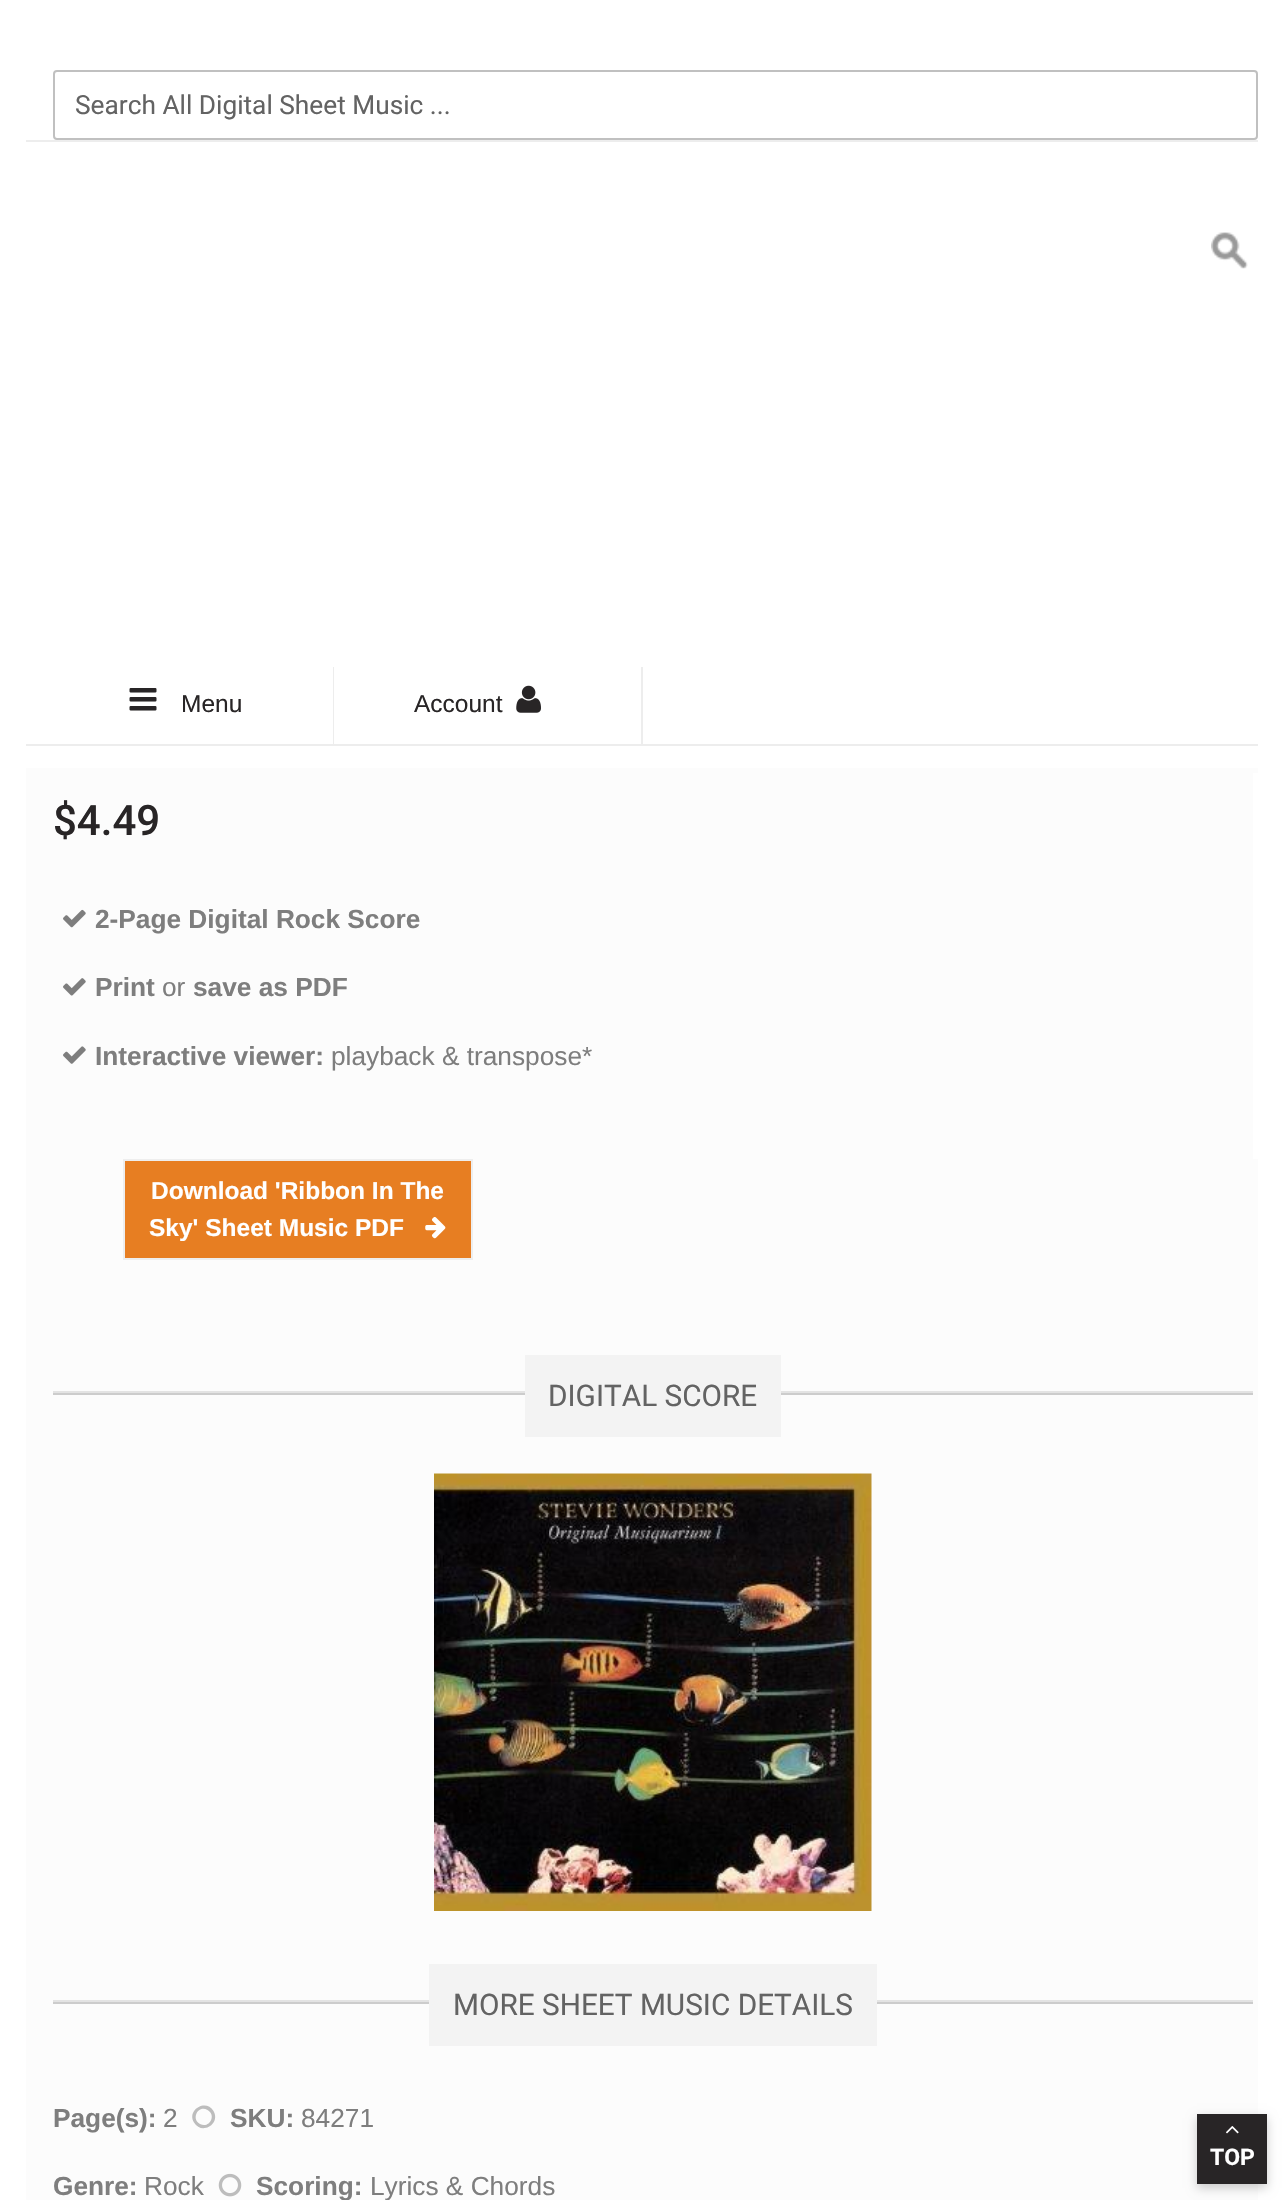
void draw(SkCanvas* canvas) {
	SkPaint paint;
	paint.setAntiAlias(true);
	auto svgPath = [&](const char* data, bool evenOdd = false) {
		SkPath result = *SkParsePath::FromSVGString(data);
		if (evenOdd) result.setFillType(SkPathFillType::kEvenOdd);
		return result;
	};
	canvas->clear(0xffffffff);
	paint.setStroke(true);
	paint.setStrokeWidth(2);
	paint.setColor(0xffc0c0c0);
	canvas->drawRoundRect(SkRect::MakeXYWH(54, 71, 1203, 68), 3, 3, paint);
	SkFont f1(fontMgr->matchFamilyStyle("Roboto", SkFontStyle::Normal()), 26.25);
	f1.setSubpixel(true);
	paint.setStroke(false);
	paint.setColor(0xff636363);
	canvas->drawString("Search All Digital Sheet Music ...", 75, 114, f1, paint);
	canvas->drawImageRect(SkImages::DeferredFromEncodedData(SkData::MakeFromFileName("img1.png")), SkRect::MakeXYWH(1211, 232, 37, 37), SkSamplingOptions());
	paint.setColor(0xffededed);
	canvas->drawRect(SkRect::MakeXYWH(26, 140, 1232, 2), paint);
	canvas->drawRect(SkRect::MakeXYWH(26, 744, 1232, 2), paint);
	canvas->drawRect(SkRect::MakeXYWH(333, 667, 1, 77), paint);
	canvas->drawImageRect(SkImages::DeferredFromEncodedData(SkData::MakeFromFileName("img2.png")), SkRect::MakeXYWH(129, 688, 28, 23), SkSamplingOptions());
	SkFont f2(fontMgr->matchFamilyStyle("Liberation Sans", SkFontStyle::Normal()), 24.5);
	f2.setSubpixel(true);
	paint.setColor(0xff282526);
	canvas->drawString("Menu", 181, 712, f2, paint);
	paint.setColor(0xffededed);
	canvas->drawRect(SkRect::MakeXYWH(641, 667, 2, 77), paint);
	paint.setColor(0xff282526);
	canvas->drawString("Account", 414, 712, f2, paint);
	canvas->drawImageRect(SkImages::DeferredFromEncodedData(SkData::MakeFromFileName("img3.png")), SkRect::MakeXYWH(516, 685, 25, 28), SkSamplingOptions());
	paint.setColor(0xfffcfcfc);
	canvas->drawRect(SkRect::MakeXYWH(26, 768, 1232, 5), paint);
	canvas->drawRect(SkRect::MakeXYWH(26, 773, 1227, 386), paint);
	SkFont f3(fontMgr->matchFamilyStyle("Roboto", SkFontStyle(500, SkFontStyle::kNormal_Width, SkFontStyle::kUpright_Slant)), 42);
	f3.setSubpixel(true);
	paint.setColor(0xff282526);
	canvas->drawString("$4.49", 53, 835, f3, paint);
	canvas->drawImageRect(SkImages::DeferredFromEncodedData(SkData::MakeFromFileName("img4.png")), SkRect::MakeXYWH(63, 909, 23, 19), SkSamplingOptions());
	SkFont f4(fontMgr->matchFamilyStyle("Liberation Sans", SkFontStyle::Bold()), 26.25);
	f4.setSubpixel(true);
	paint.setColor(0xff7e7e7e);
	canvas->drawString("2-Page Digital Rock Score", 95, 928, f4, paint);
	canvas->drawImageRect(SkImages::DeferredFromEncodedData(SkData::MakeFromFileName("img5.png")), SkRect::MakeXYWH(63, 978, 23, 18), SkSamplingOptions());
	canvas->drawString("Print", 95, 996, f4, paint);
	SkFont f5(fontMgr->matchFamilyStyle("Liberation Sans", SkFontStyle::Normal()), 26.25);
	f5.setSubpixel(true);
	canvas->drawString("or", 162, 996, f5, paint);
	canvas->drawString("save as PDF", 193, 996, f4, paint);
	canvas->drawImageRect(SkImages::DeferredFromEncodedData(SkData::MakeFromFileName("img6.png")), SkRect::MakeXYWH(63, 1046, 23, 18), SkSamplingOptions());
	canvas->drawString("Interactive viewer:", 95, 1065, f4, paint);
	canvas->drawString("playback & transpose*", 331, 1065, f5, paint);
	paint.setColor(0xfffcfcfc);
	canvas->drawRect(SkRect::MakeXYWH(26, 1159, 1232, 1041), paint);
	paint.setColor(0xffe77e22);
	canvas->drawRect(SkRect::MakeXYWH(124, 1160, 348, 99), paint);
	paint.setStroke(true);
	paint.setColor(0xffeeeeee);
	canvas->drawRect(SkRect::MakeXYWH(124, 1160, 348, 99), paint);
	SkFont f6(fontMgr->matchFamilyStyle("Liberation Sans", SkFontStyle::Bold()), 24.5);
	f6.setSubpixel(true);
	paint.setStroke(false);
	paint.setColor(0xffffffff);
	canvas->drawString("Download 'Ribbon In The", 151, 1199, f6, paint);
	canvas->drawString("Sky' Sheet Music PDF", 149, 1236, f6, paint);
	canvas->drawImageRect(SkImages::DeferredFromEncodedData(SkData::MakeFromFileName("img7.png")), SkRect::MakeXYWH(425, 1217, 21, 22), SkSamplingOptions());
	paint.setColor(0xffe3e3e3);
	canvas->drawRect(SkRect::MakeXYWH(53, 1391, 1200, 2), paint);
	paint.setColor(0xffcccccc);
	canvas->drawRect(SkRect::MakeXYWH(53, 1393, 1200, 2), paint);
	paint.setColor(0xfff3f3f3);
	canvas->drawRect(SkRect::MakeXYWH(525, 1355, 256, 82), paint);
	SkFont f7(fontMgr->matchFamilyStyle("Roboto", SkFontStyle::Normal()), 29.75);
	f7.setSubpixel(true);
	paint.setColor(0xff636363);
	canvas->drawString("DIGITAL SCORE", 548, 1406, f7, paint);
	canvas->drawImageRect(SkImages::DeferredFromEncodedData(SkData::MakeFromFileName("img8.png")), SkRect::MakeXYWH(434, 1473, 438, 438), SkSamplingOptions());
	paint.setColor(0xffe3e3e3);
	canvas->drawRect(SkRect::MakeXYWH(53, 2000, 1200, 2), paint);
	paint.setColor(0xffcccccc);
	canvas->drawRect(SkRect::MakeXYWH(53, 2002, 1200, 2), paint);
	paint.setColor(0xfff3f3f3);
	canvas->drawRect(SkRect::MakeXYWH(429, 1964, 448, 82), paint);
	paint.setColor(0xff636363);
	canvas->drawString("MORE SHEET MUSIC DETAILS", 453, 2015, f7, paint);
	paint.setColor(0xff7e7e7e);
	canvas->drawString("Page(s):", 53, 2127, f4, paint);
	canvas->drawString("2", 163, 2127, f5, paint);
	paint.setColor(0xffbdbdbd);
	canvas->drawPath(svgPath("M207.5 2110C198.5 2104.5 190.5 2118.5 200 2124C209 2129 217 2115.5 207.5 2110ZM213.5 2111C221 2124 201.5 2135.5 194 2122.5C186.5 2110 206 2098.5 213.5 2111Z"), paint);
	paint.setColor(0xff7e7e7e);
	canvas->drawString("SKU:", 230, 2127, f4, paint);
	canvas->drawString("84271", 301, 2127, f5, paint);
	canvas->drawString("Genre:", 53, 2195, f4, paint);
	canvas->drawString("Rock", 144, 2195, f5, paint);
	canvas->drawImageRect(SkImages::DeferredFromEncodedData(SkData::MakeFromFileName("img9.png")), SkRect::MakeXYWH(218, 2173, 24, 24), SkSamplingOptions());
	canvas->drawString("Scoring:", 256, 2195, f4, paint);
	canvas->drawString("Lyrics & Chords", 370, 2195, f5, paint);
	paint.setColor(0x33000000);
	paint.setMaskFilter(SkMaskFilter::MakeBlur(kNormal_SkBlurStyle, 5));
	canvas->drawRect(SkRect::MakeXYWH(1197, 2118, 70, 70), paint);
	paint.setMaskFilter(nullptr);
	paint.setColor(0xff282526);
	canvas->drawRect(SkRect::MakeXYWH(1197, 2114, 70, 70), paint);
	canvas->drawImageRect(SkImages::DeferredFromEncodedData(SkData::MakeFromFileName("img10.png")), SkRect::MakeXYWH(1226, 2126, 13, 8), SkSamplingOptions());
	SkFont f8(fontMgr->matchFamilyStyle("Roboto", SkFontStyle::Bold()), 23);
	f8.setSubpixel(true);
	paint.setColor(0xffffffff);
	canvas->drawString("TOP", 1210, 2165, f8, paint);
}
